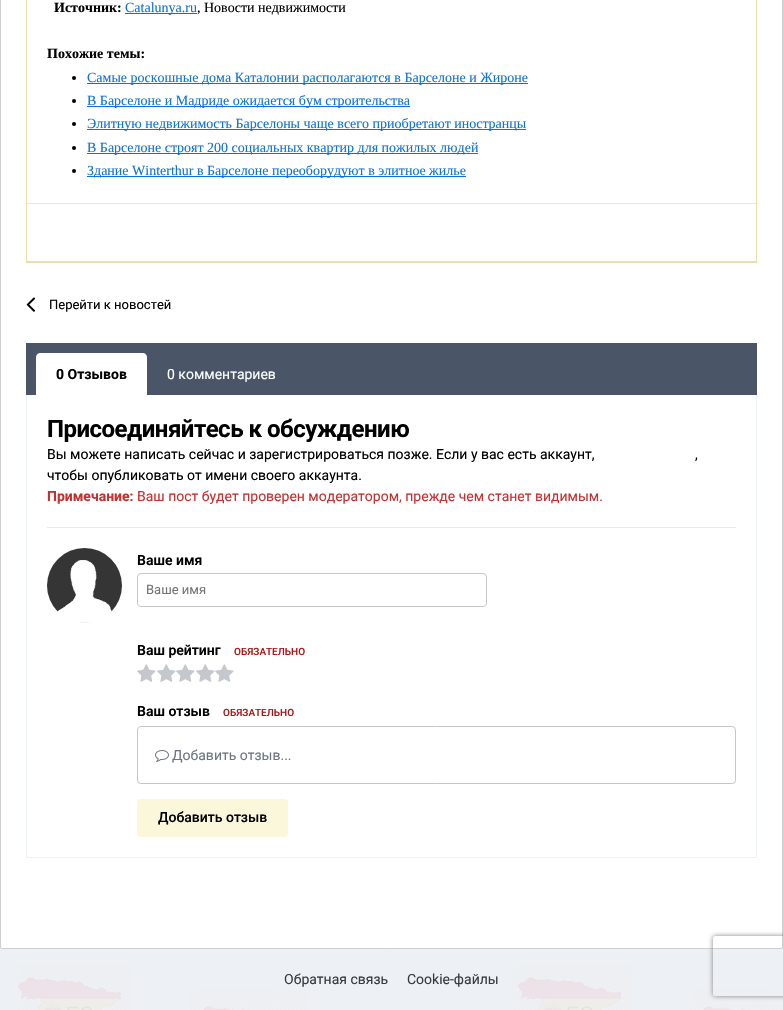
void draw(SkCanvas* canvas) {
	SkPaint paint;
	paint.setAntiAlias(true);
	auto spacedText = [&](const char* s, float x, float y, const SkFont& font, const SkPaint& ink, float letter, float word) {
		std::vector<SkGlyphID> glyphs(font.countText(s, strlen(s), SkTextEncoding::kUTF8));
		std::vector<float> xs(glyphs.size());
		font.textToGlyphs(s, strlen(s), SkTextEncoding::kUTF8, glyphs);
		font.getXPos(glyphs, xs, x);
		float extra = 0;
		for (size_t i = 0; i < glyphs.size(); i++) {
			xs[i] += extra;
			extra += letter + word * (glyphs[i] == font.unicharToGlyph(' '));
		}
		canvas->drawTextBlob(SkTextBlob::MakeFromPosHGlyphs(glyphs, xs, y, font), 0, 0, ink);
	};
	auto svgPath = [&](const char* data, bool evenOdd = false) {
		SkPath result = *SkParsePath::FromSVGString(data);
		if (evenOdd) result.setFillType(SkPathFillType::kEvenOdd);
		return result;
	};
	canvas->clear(0xffedf0f4);
	canvas->drawImageRect(SkImages::DeferredFromEncodedData(SkData::MakeFromFileName("img1.png")), SkRect::MakeXYWH(18, 965, 765, 45), SkSamplingOptions());
	paint.setColor(0xffffffff);
	canvas->drawRoundRect(SkRect::MakeXYWH(0.5, -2.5, 782, 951), 1.5, 1.5, paint);
	paint.setStroke(true);
	paint.setStrokeWidth(1);
	paint.setColor(0xffcfcfcf);
	canvas->drawRoundRect(SkRect::MakeXYWH(0.5, -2.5, 782, 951), 1.5, 1.5, paint);
	paint.setStroke(false);
	paint.setColor(0xffe7ddaa);
	canvas->drawRect(SkRect::MakeXYWH(26, 262, 731, 1), paint);
	paint.setStroke(true);
	paint.setColor(0xffeae1a6);
	canvas->drawRect(SkRect::MakeXYWH(26.5, -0.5, 730, 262), paint);
	SkFont f1(fontMgr->matchFamilyStyle("Liberation Serif", SkFontStyle::Bold()), 14);
	f1.setSubpixel(true);
	paint.setStroke(false);
	paint.setColor(0xff000000);
	canvas->drawString("Источник:", 54, 12, f1, paint);
	paint.setColor(0xff0f72da);
	canvas->drawRect(SkRect::MakeXYWH(125, 13, 72, 1), paint);
	SkFont f2(fontMgr->matchFamilyStyle("Liberation Serif", SkFontStyle::Normal()), 14);
	f2.setSubpixel(true);
	canvas->drawString("Catalunya.ru", 125, 12, f2, paint);
	paint.setColor(0xff000000);
	canvas->drawString(", Новости недвижимости", 197, 12, f2, paint);
	canvas->drawString("Похожие темы:", 47, 58, f1, paint);
	canvas->drawCircle(74, 78, 2, paint);
	paint.setColor(0xff0f72da);
	canvas->drawRect(SkRect::MakeXYWH(87, 83, 441, 1), paint);
	canvas->drawString("Самые роскошные дома Каталонии располагаются в Барселоне и Жироне", 87, 82, f2, paint);
	paint.setColor(0xff000000);
	canvas->drawCircle(74, 101, 2, paint);
	paint.setColor(0xff0f72da);
	canvas->drawRect(SkRect::MakeXYWH(87, 106, 323, 1), paint);
	canvas->drawString("В Барселоне и Мадриде ожидается бум строительства", 87, 105, f2, paint);
	paint.setColor(0xff000000);
	canvas->drawCircle(74, 124, 2, paint);
	paint.setColor(0xff0f72da);
	canvas->drawRect(SkRect::MakeXYWH(87, 129, 439, 1), paint);
	canvas->drawString("Элитную недвижимость Барселоны чаще всего приобретают иностранцы", 87, 128, f2, paint);
	paint.setColor(0xff000000);
	canvas->drawCircle(74, 148, 2, paint);
	paint.setColor(0xff0f72da);
	canvas->drawRect(SkRect::MakeXYWH(87, 153, 391, 1), paint);
	canvas->drawString("В Барселоне строят 200 социальных квартир для пожилых людей", 87, 152, f2, paint);
	paint.setColor(0xff000000);
	canvas->drawCircle(74, 171, 2, paint);
	paint.setColor(0xff0f72da);
	canvas->drawRect(SkRect::MakeXYWH(87, 176, 379, 1), paint);
	canvas->drawString("Здание Winterthur в Барселоне переоборудуют в элитное жилье", 87, 175, f2, paint);
	paint.setColor(0xffe6e6e6);
	canvas->drawRect(SkRect::MakeXYWH(27, 203, 729, 1), paint);
	canvas->drawImageRect(SkImages::DeferredFromEncodedData(SkData::MakeFromFileName("img2.png")), SkRect::MakeXYWH(26, 297, 10, 15), SkSamplingOptions());
	SkFont f3(fontMgr->matchFamilyStyle("Roboto", SkFontStyle::Normal()), 13);
	f3.setSubpixel(true);
	paint.setColor(0xff000000);
	canvas->drawString("Перейти к новостей", 49, 309, f3, paint);
	paint.setColor(0xff4a5568);
	canvas->drawRect(SkRect::MakeXYWH(26, 343, 731, 52), paint);
	paint.setColor(0xffffffff);
	canvas->drawPath(svgPath("M40 353H143C145 353 147 355 147 357V395H36V357C36 355 38 353 40 353Z"), paint);
	SkFont f4(fontMgr->matchFamilyStyle("Roboto", SkFontStyle::Bold()), 14);
	f4.setSubpixel(true);
	paint.setColor(0xff000000);
	canvas->drawString("0 Отзывов", 56, 379, f4, paint);
	SkFont f5(fontMgr->matchFamilyStyle("Roboto", SkFontStyle::Normal()), 14);
	f5.setSubpixel(true);
	paint.setColor(0xffffffff);
	canvas->drawString("0 комментариев", 167, 379, f5, paint);
	paint.setColor(0xffedf2f7);
	canvas->drawRect(SkRect::MakeXYWH(756, 395, 1, 463), paint);
	canvas->drawRect(SkRect::MakeXYWH(26, 857, 731, 1), paint);
	canvas->drawRect(SkRect::MakeXYWH(26, 395, 1, 463), paint);
	paint.setColor(0xffe9eaec);
	canvas->drawRect(SkRect::MakeXYWH(47, 527, 689, 1), paint);
	SkFont f6(fontMgr->matchFamilyStyle("Roboto", SkFontStyle::Bold()), 24);
	f6.setSubpixel(true);
	paint.setColor(0xff000000);
	spacedText("Присоединяйтесь к обсуждению", 47, 437, f6, paint, -0.5, 0);
	canvas->drawString("Вы можете написать сейчас и зарегистрироваться позже. Если у вас есть аккаунт,", 47, 459, f5, paint);
	canvas->drawString(",", 695, 459, f5, paint);
	canvas->drawString("чтобы опубликовать от имени своего аккаунта.", 47, 480, f5, paint);
	paint.setColor(0xffc53030);
	canvas->drawString("Примечание:", 47, 501, f4, paint);
	canvas->drawString("Ваш пост будет проверен модератором, прежде чем станет видимым.", 137, 501, f5, paint);
	canvas->drawImageRect(SkImages::DeferredFromEncodedData(SkData::MakeFromFileName("img3.png")), SkRect::MakeXYWH(47, 548, 75, 75), SkSamplingOptions());
	SkFont f7(fontMgr->matchFamilyStyle("Roboto", SkFontStyle(600, SkFontStyle::kNormal_Width, SkFontStyle::kUpright_Slant)), 14);
	f7.setSubpixel(true);
	paint.setColor(0xff000000);
	canvas->drawString("Ваше имя", 137, 565, f7, paint);
	paint.setStroke(true);
	paint.setColor(0xffc4c8cc);
	canvas->drawRoundRect(SkRect::MakeXYWH(137.5, 573.5, 349, 33), 3.5, 3.5, paint);
	paint.setStroke(false);
	paint.setColor(0xff757575);
	canvas->drawString("Ваше имя", 146, 594, f3, paint);
	paint.setColor(0xff000000);
	canvas->drawString("Ваш рейтинг", 137, 655, f7, paint);
	SkFont f8(fontMgr->matchFamilyStyle("Roboto", SkFontStyle(500, SkFontStyle::kNormal_Width, SkFontStyle::kUpright_Slant)), 10);
	f8.setSubpixel(true);
	paint.setColor(0xffaa1414);
	canvas->drawString("ОБЯЗАТЕЛЬНО", 234, 655, f8, paint);
	canvas->drawImageRect(SkImages::DeferredFromEncodedData(SkData::MakeFromFileName("img4.png")), SkRect::MakeXYWH(137, 664, 19, 18), SkSamplingOptions());
	canvas->drawImageRect(SkImages::DeferredFromEncodedData(SkData::MakeFromFileName("img4.png")), SkRect::MakeXYWH(157, 664, 19, 18), SkSamplingOptions());
	canvas->drawImageRect(SkImages::DeferredFromEncodedData(SkData::MakeFromFileName("img4.png")), SkRect::MakeXYWH(176, 664, 19, 18), SkSamplingOptions());
	canvas->drawImageRect(SkImages::DeferredFromEncodedData(SkData::MakeFromFileName("img4.png")), SkRect::MakeXYWH(196, 664, 19, 18), SkSamplingOptions());
	canvas->drawImageRect(SkImages::DeferredFromEncodedData(SkData::MakeFromFileName("img4.png")), SkRect::MakeXYWH(215, 664, 19, 18), SkSamplingOptions());
	paint.setColor(0xff000000);
	canvas->drawString("Ваш отзыв", 137, 716, f7, paint);
	paint.setColor(0xffaa1414);
	canvas->drawString("ОБЯЗАТЕЛЬНО", 223, 716, f8, paint);
	paint.setStroke(true);
	paint.setColor(0xffc4c8cc);
	canvas->drawRoundRect(SkRect::MakeXYWH(137.5, 726.5, 598, 57), 3.5, 3.5, paint);
	canvas->drawImageRect(SkImages::DeferredFromEncodedData(SkData::MakeFromFileName("img5.png")), SkRect::MakeXYWH(155, 750, 14, 12), SkSamplingOptions());
	paint.setStroke(false);
	paint.setColor(0xff6c7680);
	canvas->drawString("Добавить отзыв...", 172, 760, f5, paint);
	paint.setColor(0xfffbf7db);
	canvas->drawRoundRect(SkRect::MakeXYWH(137, 799, 151, 38), 4, 4, paint);
	SkFont f9(fontMgr->matchFamilyStyle("Roboto", SkFontStyle(500, SkFontStyle::kNormal_Width, SkFontStyle::kUpright_Slant)), 14);
	f9.setSubpixel(true);
	paint.setColor(0xff000000);
	canvas->drawString("Добавить отзыв", 158, 822, f9, paint);
	canvas->save();
	canvas->clipPath(svgPath("M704 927H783V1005H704ZM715 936H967C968 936 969 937 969 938V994C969 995 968 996 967 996H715C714 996 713 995 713 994V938C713 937 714 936 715 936Z", true), true);
	paint.setColor(0xff808080);
	paint.setMaskFilter(SkMaskFilter::MakeBlur(kNormal_SkBlurStyle, 2.5));
	canvas->drawRoundRect(SkRect::MakeXYWH(713, 936, 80, 60), 2, 2, paint);
	paint.setMaskFilter(nullptr);
	canvas->restore();
	paint.setColor(0xff353c41);
	canvas->drawString("Обратная связь", 284, 984, f5, paint);
	canvas->drawString("Cookie-файлы", 407, 984, f5, paint);
}
